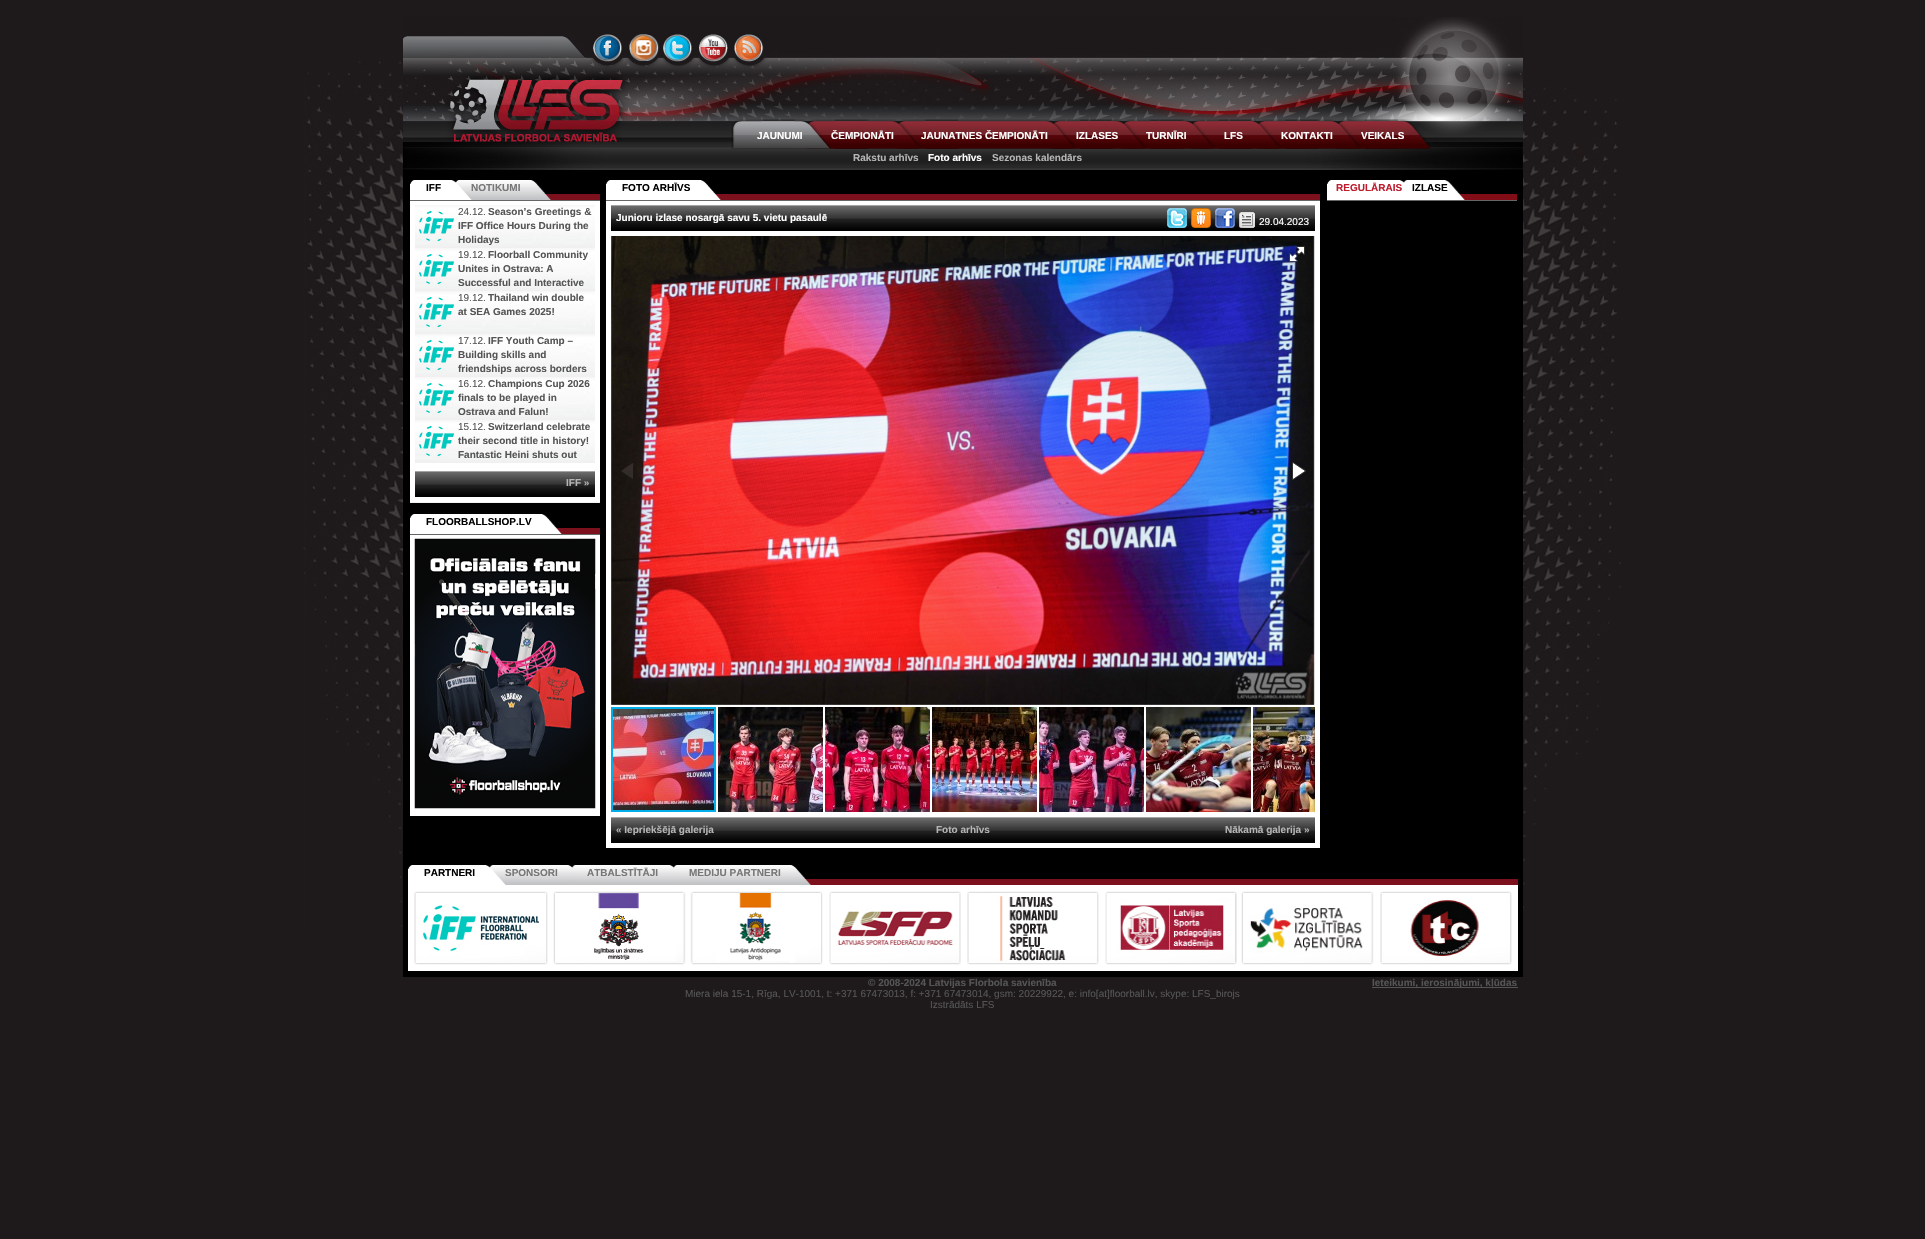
void draw(SkCanvas* canvas) {
	SkPaint paint;
	paint.setAntiAlias(true);
	canvas->clear(0xff1e1a1b);
	canvas->drawImageRect(SkImages::DeferredFromEncodedData(SkData::MakeFromFileName("img1.png")), SkRect::MakeXYWH(303, 61, 1318, 866), SkSamplingOptions());
	canvas->drawImageRect(SkImages::DeferredFromEncodedData(SkData::MakeFromFileName("img2.png")), SkRect::MakeXYWH(403, 17, 1120, 125), SkSamplingOptions());
	canvas->drawImageRect(SkImages::DeferredFromEncodedData(SkData::MakeFromFileName("img3.png")), SkRect::MakeXYWH(593, 34, 29, 28), SkSamplingOptions());
	canvas->drawImageRect(SkImages::DeferredFromEncodedData(SkData::MakeFromFileName("img4.png")), SkRect::MakeXYWH(629, 34, 30, 27), SkSamplingOptions());
	canvas->drawImageRect(SkImages::DeferredFromEncodedData(SkData::MakeFromFileName("img5.png")), SkRect::MakeXYWH(663, 34, 29, 28), SkSamplingOptions());
	canvas->drawImageRect(SkImages::DeferredFromEncodedData(SkData::MakeFromFileName("img6.png")), SkRect::MakeXYWH(699, 34, 29, 28), SkSamplingOptions());
	canvas->drawImageRect(SkImages::DeferredFromEncodedData(SkData::MakeFromFileName("img7.png")), SkRect::MakeXYWH(734, 34, 30, 28), SkSamplingOptions());
	canvas->drawImageRect(SkImages::DeferredFromEncodedData(SkData::MakeFromFileName("img24.png")), SkRect::MakeXYWH(403, 142, 1120, 28), SkSamplingOptions());
	canvas->drawImageRect(SkImages::DeferredFromEncodedData(SkData::MakeFromFileName("img22.png")), SkRect::MakeXYWH(1365, 119, 66, 30), SkSamplingOptions());
	canvas->drawImageRect(SkImages::DeferredFromEncodedData(SkData::MakeFromFileName("img23.png")), SkRect::MakeXYWH(1335, 119, 63, 30), SkSamplingOptions());
	SkFont f1(fontMgr->matchFamilyStyle("Liberation Sans", SkFontStyle::Bold()), 10);
	f1.setSubpixel(true);
	paint.setColor(0xffffffff);
	canvas->drawString("VEIKALS", 1361, 139, f1, paint);
	canvas->drawImageRect(SkImages::DeferredFromEncodedData(SkData::MakeFromFileName("img20.png")), SkRect::MakeXYWH(1285, 119, 76, 30), SkSamplingOptions());
	canvas->drawImageRect(SkImages::DeferredFromEncodedData(SkData::MakeFromFileName("img21.png")), SkRect::MakeXYWH(1255, 119, 63, 30), SkSamplingOptions());
	canvas->drawImageRect(SkImages::DeferredFromEncodedData(SkData::MakeFromFileName("img18.png")), SkRect::MakeXYWH(1219, 119, 62, 30), SkSamplingOptions());
	canvas->drawImageRect(SkImages::DeferredFromEncodedData(SkData::MakeFromFileName("img19.png")), SkRect::MakeXYWH(1189, 119, 63, 30), SkSamplingOptions());
	canvas->drawImageRect(SkImages::DeferredFromEncodedData(SkData::MakeFromFileName("img16.png")), SkRect::MakeXYWH(1150, 119, 65, 30), SkSamplingOptions());
	canvas->drawImageRect(SkImages::DeferredFromEncodedData(SkData::MakeFromFileName("img17.png")), SkRect::MakeXYWH(1120, 119, 64, 30), SkSamplingOptions());
	canvas->drawImageRect(SkImages::DeferredFromEncodedData(SkData::MakeFromFileName("img14.png")), SkRect::MakeXYWH(1080, 119, 66, 30), SkSamplingOptions());
	canvas->drawImageRect(SkImages::DeferredFromEncodedData(SkData::MakeFromFileName("img15.png")), SkRect::MakeXYWH(1050, 119, 63, 30), SkSamplingOptions());
	canvas->drawImageRect(SkImages::DeferredFromEncodedData(SkData::MakeFromFileName("img12.png")), SkRect::MakeXYWH(925, 119, 151, 30), SkSamplingOptions());
	canvas->drawImageRect(SkImages::DeferredFromEncodedData(SkData::MakeFromFileName("img13.png")), SkRect::MakeXYWH(895, 119, 63, 30), SkSamplingOptions());
	canvas->drawImageRect(SkImages::DeferredFromEncodedData(SkData::MakeFromFileName("img10.png")), SkRect::MakeXYWH(835, 119, 86, 30), SkSamplingOptions());
	canvas->drawImageRect(SkImages::DeferredFromEncodedData(SkData::MakeFromFileName("img11.png")), SkRect::MakeXYWH(805, 119, 63, 30), SkSamplingOptions());
	canvas->drawImageRect(SkImages::DeferredFromEncodedData(SkData::MakeFromFileName("img8.png")), SkRect::MakeXYWH(761, 119, 70, 30), SkSamplingOptions());
	canvas->drawImageRect(SkImages::DeferredFromEncodedData(SkData::MakeFromFileName("img9.png")), SkRect::MakeXYWH(731, 119, 64, 30), SkSamplingOptions());
	canvas->drawString("JAUNUMI", 757, 139, f1, paint);
	canvas->drawString("ČEMPIONĀTI", 831, 139, f1, paint);
	canvas->drawString("JAUNATNES ČEMPIONĀTI", 921, 139, f1, paint);
	canvas->drawString("IZLASES", 1076, 139, f1, paint);
	canvas->drawString("TURNĪRI", 1146, 139, f1, paint);
	canvas->drawString("LFS", 1224, 139, f1, paint);
	canvas->drawString("KONTAKTI", 1281, 139, f1, paint);
	paint.setColor(0xffb5b5b5);
	canvas->drawString("Rakstu arhīvs", 853, 161, f1, paint);
	paint.setColor(0xffffffff);
	canvas->drawString("Foto arhīvs", 928, 161, f1, paint);
	paint.setColor(0xffb5b5b5);
	canvas->drawString("Sezonas kalendārs", 992, 161, f1, paint);
	paint.setColor(0xff000000);
	canvas->drawRect(SkRect::MakeXYWH(403, 170, 1120, 807), paint);
	paint.setColor(0xff666666);
	canvas->drawRect(SkRect::MakeXYWH(410, 200, 190, 1), paint);
	canvas->drawImageRect(SkImages::DeferredFromEncodedData(SkData::MakeFromFileName("img28.png")), SkRect::MakeXYWH(455, 180, 22, 20), SkSamplingOptions());
	paint.setColor(0xff7c101d);
	canvas->drawRect(SkRect::MakeXYWH(545, 194, 55, 6), paint);
	canvas->drawImageRect(SkImages::DeferredFromEncodedData(SkData::MakeFromFileName("img27.png")), SkRect::MakeXYWH(477, 180, 74, 20), SkSamplingOptions());
	paint.setColor(0xff777777);
	canvas->drawString("NOTIKUMI", 471, 191, f1, paint);
	canvas->drawImageRect(SkImages::DeferredFromEncodedData(SkData::MakeFromFileName("img25.png")), SkRect::MakeXYWH(432, 180, 40, 20), SkSamplingOptions());
	canvas->drawImageRect(SkImages::DeferredFromEncodedData(SkData::MakeFromFileName("img26.png")), SkRect::MakeXYWH(410, 180, 22, 20), SkSamplingOptions());
	paint.setColor(0xff000000);
	canvas->drawString("IFF", 426, 191, f1, paint);
	paint.setColor(0xfff2f2f2);
	canvas->drawRect(SkRect::MakeXYWH(410, 502, 190, 1), paint);
	paint.setColor(0xffffffff);
	canvas->drawRect(SkRect::MakeXYWH(410, 201, 190, 301), paint);
	canvas->drawImageRect(SkImages::DeferredFromEncodedData(SkData::MakeFromFileName("img29.png")), SkRect::MakeXYWH(415, 205, 180, 43), SkSamplingOptions());
	canvas->drawImageRect(SkImages::DeferredFromEncodedData(SkData::MakeFromFileName("img30.png")), SkRect::MakeXYWH(419, 211, 35, 30), SkSamplingOptions());
	SkFont f2(fontMgr->matchFamilyStyle("Liberation Sans", SkFontStyle::Normal()), 10);
	f2.setSubpixel(true);
	paint.setColor(0xff555555);
	canvas->drawString("24.12.", 458, 215, f2, paint);
	canvas->drawString("Season’s Greetings &", 488, 215, f1, paint);
	canvas->drawString("IFF Office Hours During the", 458, 229, f1, paint);
	canvas->drawString("Holidays", 458, 243, f1, paint);
	canvas->drawImageRect(SkImages::DeferredFromEncodedData(SkData::MakeFromFileName("img29.png")), SkRect::MakeXYWH(415, 248, 180, 43), SkSamplingOptions());
	canvas->drawImageRect(SkImages::DeferredFromEncodedData(SkData::MakeFromFileName("img30.png")), SkRect::MakeXYWH(419, 254, 35, 30), SkSamplingOptions());
	canvas->drawString("19.12.", 458, 258, f2, paint);
	canvas->drawString("Floorball Community", 488, 258, f1, paint);
	canvas->drawString("Unites in Ostrava: A", 458, 272, f1, paint);
	canvas->drawString("Successful and Interactive", 458, 286, f1, paint);
	canvas->drawImageRect(SkImages::DeferredFromEncodedData(SkData::MakeFromFileName("img29.png")), SkRect::MakeXYWH(415, 291, 180, 43), SkSamplingOptions());
	canvas->drawImageRect(SkImages::DeferredFromEncodedData(SkData::MakeFromFileName("img30.png")), SkRect::MakeXYWH(419, 297, 35, 30), SkSamplingOptions());
	canvas->drawString("19.12.", 458, 301, f2, paint);
	canvas->drawString("Thailand win double", 488, 301, f1, paint);
	canvas->drawString("at SEA Games 2025!", 458, 315, f1, paint);
	canvas->drawImageRect(SkImages::DeferredFromEncodedData(SkData::MakeFromFileName("img29.png")), SkRect::MakeXYWH(415, 334, 180, 43), SkSamplingOptions());
	canvas->drawImageRect(SkImages::DeferredFromEncodedData(SkData::MakeFromFileName("img30.png")), SkRect::MakeXYWH(419, 340, 35, 30), SkSamplingOptions());
	canvas->drawString("17.12.", 458, 344, f2, paint);
	canvas->drawString("IFF Youth Camp –", 488, 344, f1, paint);
	canvas->drawString("Building skills and", 458, 358, f1, paint);
	canvas->drawString("friendships across borders", 458, 372, f1, paint);
	canvas->drawImageRect(SkImages::DeferredFromEncodedData(SkData::MakeFromFileName("img29.png")), SkRect::MakeXYWH(415, 377, 180, 43), SkSamplingOptions());
	canvas->drawImageRect(SkImages::DeferredFromEncodedData(SkData::MakeFromFileName("img30.png")), SkRect::MakeXYWH(419, 383, 35, 30), SkSamplingOptions());
	canvas->drawString("16.12.", 458, 387, f2, paint);
	canvas->drawString("Champions Cup 2026", 488, 387, f1, paint);
	canvas->drawString("finals to be played in", 458, 401, f1, paint);
	canvas->drawString("Ostrava and Falun!", 458, 415, f1, paint);
	canvas->drawImageRect(SkImages::DeferredFromEncodedData(SkData::MakeFromFileName("img29.png")), SkRect::MakeXYWH(415, 420, 180, 43), SkSamplingOptions());
	canvas->drawImageRect(SkImages::DeferredFromEncodedData(SkData::MakeFromFileName("img30.png")), SkRect::MakeXYWH(419, 426, 35, 30), SkSamplingOptions());
	canvas->drawString("15.12.", 458, 430, f2, paint);
	canvas->drawString("Switzerland celebrate", 488, 430, f1, paint);
	canvas->drawString("their second title in history!", 458, 444, f1, paint);
	canvas->drawString("Fantastic Heini shuts out", 458, 458, f1, paint);
	canvas->drawImageRect(SkImages::DeferredFromEncodedData(SkData::MakeFromFileName("img31.png")), SkRect::MakeXYWH(415, 471, 180, 26), SkSamplingOptions());
	paint.setColor(0xffb5b5b5);
	canvas->drawString("IFF »", 566, 486, f1, paint);
	paint.setColor(0xff666666);
	canvas->drawRect(SkRect::MakeXYWH(410, 534, 190, 1), paint);
	paint.setColor(0xff7c101d);
	canvas->drawRect(SkRect::MakeXYWH(556, 528, 44, 6), paint);
	canvas->drawImageRect(SkImages::DeferredFromEncodedData(SkData::MakeFromFileName("img32.png")), SkRect::MakeXYWH(432, 514, 130, 20), SkSamplingOptions());
	canvas->drawImageRect(SkImages::DeferredFromEncodedData(SkData::MakeFromFileName("img33.png")), SkRect::MakeXYWH(410, 514, 22, 20), SkSamplingOptions());
	paint.setColor(0xff000000);
	canvas->drawString("FLOORBALLSHOP.LV", 426, 525, f1, paint);
	paint.setColor(0xffffffff);
	canvas->drawRect(SkRect::MakeXYWH(410, 535, 190, 281), paint);
	canvas->drawImageRect(SkImages::DeferredFromEncodedData(SkData::MakeFromFileName("img34.png")), SkRect::MakeXYWH(414, 538, 182, 271), SkSamplingOptions());
	paint.setColor(0xff666666);
	canvas->drawRect(SkRect::MakeXYWH(606, 200, 714, 1), paint);
	paint.setColor(0xff7c101d);
	canvas->drawRect(SkRect::MakeXYWH(715, 194, 605, 6), paint);
	canvas->drawImageRect(SkImages::DeferredFromEncodedData(SkData::MakeFromFileName("img35.png")), SkRect::MakeXYWH(628, 180, 93, 20), SkSamplingOptions());
	canvas->drawImageRect(SkImages::DeferredFromEncodedData(SkData::MakeFromFileName("img36.png")), SkRect::MakeXYWH(606, 180, 22, 20), SkSamplingOptions());
	paint.setColor(0xff000000);
	canvas->drawString("FOTO ARHĪVS", 622, 191, f1, paint);
	paint.setColor(0xffffffff);
	canvas->drawRect(SkRect::MakeXYWH(606, 201, 714, 647), paint);
	canvas->drawImageRect(SkImages::DeferredFromEncodedData(SkData::MakeFromFileName("img37.png")), SkRect::MakeXYWH(611, 205, 704, 26), SkSamplingOptions());
	canvas->drawString("Junioru izlase nosargā savu 5. vietu pasaulē", 616, 221, f1, paint);
	canvas->drawImageRect(SkImages::DeferredFromEncodedData(SkData::MakeFromFileName("img38.png")), SkRect::MakeXYWH(1167, 208, 20, 20), SkSamplingOptions());
	canvas->drawImageRect(SkImages::DeferredFromEncodedData(SkData::MakeFromFileName("img39.png")), SkRect::MakeXYWH(1191, 208, 20, 20), SkSamplingOptions());
	canvas->drawImageRect(SkImages::DeferredFromEncodedData(SkData::MakeFromFileName("img40.png")), SkRect::MakeXYWH(1215, 208, 20, 20), SkSamplingOptions());
	canvas->drawImageRect(SkImages::DeferredFromEncodedData(SkData::MakeFromFileName("img41.png")), SkRect::MakeXYWH(1239, 212, 16, 16), SkSamplingOptions());
	canvas->drawString("29.04.2023", 1259, 225, f2, paint);
	canvas->drawImageRect(SkImages::DeferredFromEncodedData(SkData::MakeFromFileName("img42.png")), SkRect::MakeXYWH(611, 236, 704, 469), SkSamplingOptions());
	canvas->drawImageRect(SkImages::DeferredFromEncodedData(SkData::MakeFromFileName("img43.png")), SkRect::MakeXYWH(1286, 246, 19, 19), SkSamplingOptions());
	canvas->drawImageRect(SkImages::DeferredFromEncodedData(SkData::MakeFromFileName("img44.png")), SkRect::MakeXYWH(621, 463, 12, 16), SkSamplingOptions());
	canvas->drawImageRect(SkImages::DeferredFromEncodedData(SkData::MakeFromFileName("img45.png")), SkRect::MakeXYWH(1291, 462, 15, 18), SkSamplingOptions());
	canvas->drawImageRect(SkImages::DeferredFromEncodedData(SkData::MakeFromFileName("img51.png")), SkRect::MakeXYWH(1253, 707, 62, 105), SkSamplingOptions());
	{
		const SkColor colors[] = {0x66000000, 0x00000000};
		const float stops[] = {0, 1};
		SkMatrix m = SkMatrix::Translate(1315, 760).preScale(5, 55);
		paint.setShader(SkGradientShader::MakeRadial({0, 0}, 1, colors, stops, 2, SkTileMode::kClamp, 0, &m));
		paint.setAlpha(255);
	}
	canvas->drawRect(SkRect::MakeXYWH(1310, 715, 5, 99), paint);
	{
		const SkColor colors[] = {0x00000000, 0x33000000, 0x4d000000, 0x00000000};
		const float stops[] = {0, 0.25, 0.75, 1};
		const SkPoint ends[] = {{1315, 705}, {1315, 814}};
		paint.setShader(SkGradientShader::MakeLinear(ends, colors, stops, 4, SkTileMode::kClamp));
		paint.setAlpha(255);
	}
	canvas->drawRect(SkRect::MakeXYWH(1314, 705, 1, 109), paint);
	canvas->drawImageRect(SkImages::DeferredFromEncodedData(SkData::MakeFromFileName("img52.png")), SkRect::MakeXYWH(613, 709, 101, 101), SkSamplingOptions());
	paint.setStroke(true);
	paint.setStrokeWidth(2);
	paint.setShader(nullptr);
	paint.setColor(0xff00afea);
	canvas->drawRect(SkRect::MakeXYWH(612, 708, 103, 103), paint);
	canvas->drawImageRect(SkImages::DeferredFromEncodedData(SkData::MakeFromFileName("img46.png")), SkRect::MakeXYWH(718, 707, 105, 105), SkSamplingOptions());
	canvas->drawImageRect(SkImages::DeferredFromEncodedData(SkData::MakeFromFileName("img47.png")), SkRect::MakeXYWH(825, 707, 105, 105), SkSamplingOptions());
	canvas->drawImageRect(SkImages::DeferredFromEncodedData(SkData::MakeFromFileName("img48.png")), SkRect::MakeXYWH(932, 707, 105, 105), SkSamplingOptions());
	canvas->drawImageRect(SkImages::DeferredFromEncodedData(SkData::MakeFromFileName("img49.png")), SkRect::MakeXYWH(1039, 707, 105, 105), SkSamplingOptions());
	canvas->drawImageRect(SkImages::DeferredFromEncodedData(SkData::MakeFromFileName("img50.png")), SkRect::MakeXYWH(1146, 707, 105, 105), SkSamplingOptions());
	canvas->drawImageRect(SkImages::DeferredFromEncodedData(SkData::MakeFromFileName("img37.png")), SkRect::MakeXYWH(611, 817, 704, 26), SkSamplingOptions());
	paint.setStroke(false);
	paint.setColor(0xffb5b5b5);
	canvas->drawString("« Iepriekšējā galerija", 616, 833, f1, paint);
	canvas->drawString("Foto arhīvs", 936, 833, f1, paint);
	canvas->drawString("Nākamā galerija »", 1225, 833, f1, paint);
	paint.setColor(0xff666666);
	canvas->drawRect(SkRect::MakeXYWH(1327, 200, 190, 1), paint);
	canvas->drawImageRect(SkImages::DeferredFromEncodedData(SkData::MakeFromFileName("img55.png")), SkRect::MakeXYWH(1403, 180, 22, 20), SkSamplingOptions());
	canvas->drawImageRect(SkImages::DeferredFromEncodedData(SkData::MakeFromFileName("img53.png")), SkRect::MakeXYWH(1349, 180, 55, 20), SkSamplingOptions());
	canvas->drawImageRect(SkImages::DeferredFromEncodedData(SkData::MakeFromFileName("img26.png")), SkRect::MakeXYWH(1327, 180, 22, 20), SkSamplingOptions());
	paint.setColor(0xffbe1d2f);
	canvas->drawString("REGULĀRAIS", 1336, 191, f1, paint);
	paint.setColor(0xff820d16);
	canvas->drawRect(SkRect::MakeXYWH(1459, 194, 58, 6), paint);
	canvas->drawImageRect(SkImages::DeferredFromEncodedData(SkData::MakeFromFileName("img54.png")), SkRect::MakeXYWH(1425, 180, 40, 20), SkSamplingOptions());
	paint.setColor(0xff000000);
	canvas->drawString("IZLASE", 1412, 191, f1, paint);
	canvas->drawImageRect(SkImages::DeferredFromEncodedData(SkData::MakeFromFileName("img58.png")), SkRect::MakeXYWH(489, 865, 22, 20), SkSamplingOptions());
	canvas->drawImageRect(SkImages::DeferredFromEncodedData(SkData::MakeFromFileName("img60.png")), SkRect::MakeXYWH(571, 865, 22, 20), SkSamplingOptions());
	canvas->drawImageRect(SkImages::DeferredFromEncodedData(SkData::MakeFromFileName("img57.png")), SkRect::MakeXYWH(511, 865, 62, 20), SkSamplingOptions());
	paint.setColor(0xff777777);
	canvas->drawString("SPONSORI", 505, 876, f1, paint);
	canvas->drawImageRect(SkImages::DeferredFromEncodedData(SkData::MakeFromFileName("img56.png")), SkRect::MakeXYWH(430, 865, 76, 20), SkSamplingOptions());
	canvas->drawImageRect(SkImages::DeferredFromEncodedData(SkData::MakeFromFileName("img26.png")), SkRect::MakeXYWH(408, 865, 22, 20), SkSamplingOptions());
	paint.setColor(0xff000000);
	canvas->drawString("PARTNERI", 424, 876, f1, paint);
	canvas->drawImageRect(SkImages::DeferredFromEncodedData(SkData::MakeFromFileName("img62.png")), SkRect::MakeXYWH(673, 865, 22, 20), SkSamplingOptions());
	canvas->drawImageRect(SkImages::DeferredFromEncodedData(SkData::MakeFromFileName("img59.png")), SkRect::MakeXYWH(593, 865, 81, 20), SkSamplingOptions());
	paint.setColor(0xff777777);
	canvas->drawString("ATBALSTĪTĀJI", 587, 876, f1, paint);
	paint.setColor(0xff7c101d);
	canvas->drawRect(SkRect::MakeXYWH(805, 879, 713, 6), paint);
	canvas->drawImageRect(SkImages::DeferredFromEncodedData(SkData::MakeFromFileName("img61.png")), SkRect::MakeXYWH(695, 865, 116, 20), SkSamplingOptions());
	paint.setColor(0xff777777);
	canvas->drawString("MEDIJU PARTNERI", 689, 876, f1, paint);
	paint.setColor(0xffffffff);
	canvas->drawRect(SkRect::MakeXYWH(408, 885, 1110, 86), paint);
	canvas->drawImageRect(SkImages::DeferredFromEncodedData(SkData::MakeFromFileName("img63.png")), SkRect::MakeXYWH(414, 891, 134, 74), SkSamplingOptions());
	canvas->drawImageRect(SkImages::DeferredFromEncodedData(SkData::MakeFromFileName("img64.png")), SkRect::MakeXYWH(553, 891, 133, 74), SkSamplingOptions());
	canvas->drawImageRect(SkImages::DeferredFromEncodedData(SkData::MakeFromFileName("img65.png")), SkRect::MakeXYWH(690, 891, 133, 74), SkSamplingOptions());
	canvas->drawImageRect(SkImages::DeferredFromEncodedData(SkData::MakeFromFileName("img66.png")), SkRect::MakeXYWH(829, 891, 132, 74), SkSamplingOptions());
	canvas->drawImageRect(SkImages::DeferredFromEncodedData(SkData::MakeFromFileName("img67.png")), SkRect::MakeXYWH(967, 891, 132, 74), SkSamplingOptions());
	canvas->drawImageRect(SkImages::DeferredFromEncodedData(SkData::MakeFromFileName("img68.png")), SkRect::MakeXYWH(1105, 891, 132, 74), SkSamplingOptions());
	canvas->drawImageRect(SkImages::DeferredFromEncodedData(SkData::MakeFromFileName("img69.png")), SkRect::MakeXYWH(1241, 891, 133, 74), SkSamplingOptions());
	canvas->drawImageRect(SkImages::DeferredFromEncodedData(SkData::MakeFromFileName("img70.png")), SkRect::MakeXYWH(1380, 891, 132, 74), SkSamplingOptions());
	paint.setColor(0xff555555);
	canvas->drawString("© 2008-2024 Latvijas Florbola savienība", 868, 986, f1, paint);
	canvas->drawString("Miera iela 15-1, Rīga, LV-1001, t: +371 67473013, f: +371 67473014, gsm: 20229922, e: info[at]floorball.lv, skype: LFS_birojs", 685, 997, f2, paint);
	canvas->drawString("Izstrādāts LFS", 930, 1008, f2, paint);
	canvas->drawRect(SkRect::MakeXYWH(1372, 987, 146, 1), paint);
	canvas->drawString("Ieteikumi, ierosinājumi, kļūdas", 1372, 986, f1, paint);
}
